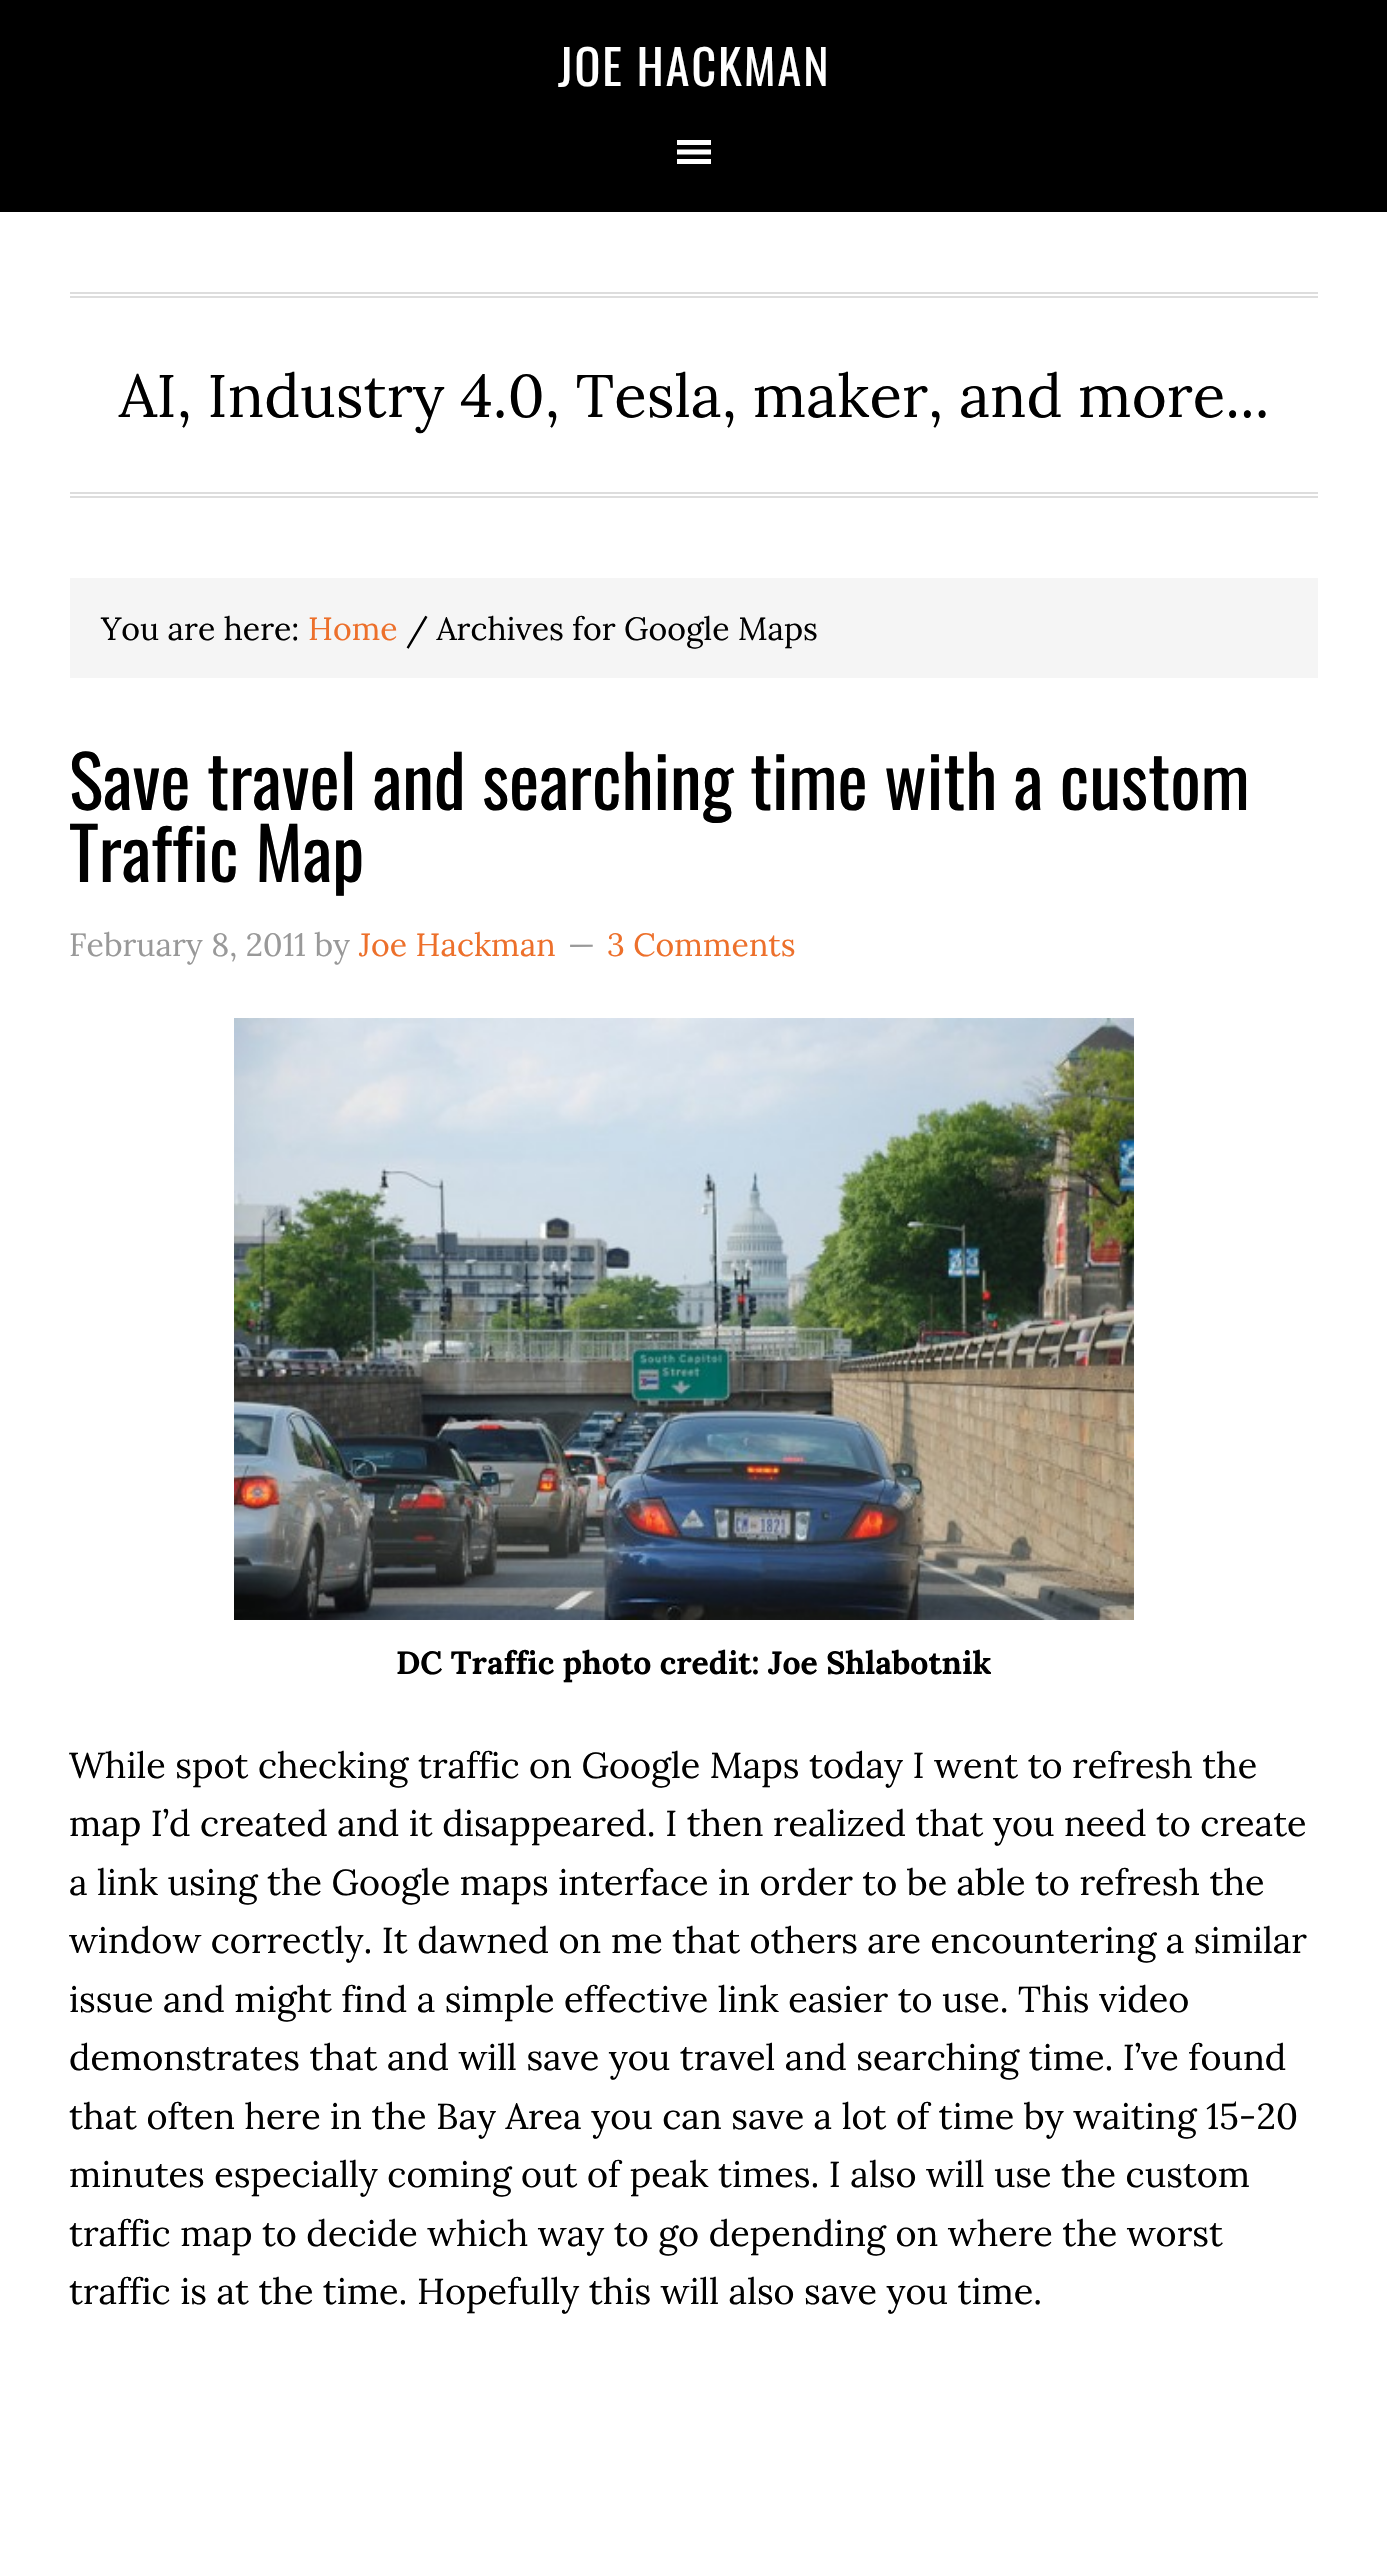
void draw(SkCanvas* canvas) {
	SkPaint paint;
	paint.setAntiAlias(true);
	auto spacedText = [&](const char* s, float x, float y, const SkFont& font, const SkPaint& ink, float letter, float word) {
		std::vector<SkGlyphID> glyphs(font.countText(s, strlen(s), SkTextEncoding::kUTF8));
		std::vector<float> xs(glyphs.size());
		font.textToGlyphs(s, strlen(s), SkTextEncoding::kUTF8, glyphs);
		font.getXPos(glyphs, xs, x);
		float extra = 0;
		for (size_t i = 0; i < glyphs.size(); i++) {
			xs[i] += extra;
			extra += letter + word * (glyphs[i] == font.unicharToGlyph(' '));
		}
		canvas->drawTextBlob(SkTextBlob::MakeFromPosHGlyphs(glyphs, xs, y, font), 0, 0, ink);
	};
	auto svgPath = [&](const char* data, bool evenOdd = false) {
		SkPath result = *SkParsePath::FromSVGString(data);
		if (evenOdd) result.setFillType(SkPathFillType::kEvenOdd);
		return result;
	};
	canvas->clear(0xffffffff);
	paint.setColor(0xff000000);
	canvas->drawRect(SkRect::MakeXYWH(0, 0, 1387, 212), paint);
	SkFont f1(fontMgr->matchFamilyStyle("Oswald", SkFontStyle::Normal()), 48);
	f1.setSubpixel(true);
	paint.setColor(0xffffffff);
	spacedText("JOE HACKMAN", 558, 86, f1, paint, 2, 0);
	canvas->drawPath(svgPath("M677 164H711V159H677ZM677 140V145H711V140ZM677 154.5H711V149.5H677Z"), paint);
	paint.setColor(0xffdddddd);
	canvas->drawRect(SkRect::MakeXYWH(70, 292, 1248, 2), paint);
	canvas->drawRect(SkRect::MakeXYWH(70, 296, 1248, 2), paint);
	canvas->drawRect(SkRect::MakeXYWH(70, 492, 1248, 2), paint);
	canvas->drawRect(SkRect::MakeXYWH(70, 496, 1248, 2), paint);
	SkFont f2(fontMgr->matchFamilyStyle("Lora", SkFontStyle::Normal()), 60);
	f2.setSubpixel(true);
	paint.setColor(0xff000000);
	canvas->drawString("AI, Industry 4.0, Tesla, maker, and more...", 119, 417, f2, paint);
	paint.setColor(0xfff5f5f5);
	canvas->drawRect(SkRect::MakeXYWH(70, 578, 1248, 100), paint);
	SkFont f3(fontMgr->matchFamilyStyle("Lora", SkFontStyle::Normal()), 32);
	f3.setSubpixel(true);
	paint.setColor(0xff000000);
	canvas->drawString("You are here:", 101, 640, f3, paint);
	paint.setColor(0xffed702b);
	canvas->drawString("Home", 308, 640, f3, paint);
	paint.setColor(0xff000000);
	canvas->drawString("/ Archives for Google Maps", 406, 640, f3, paint);
	SkFont f4(fontMgr->matchFamilyStyle("Oswald", SkFontStyle::Normal()), 72);
	f4.setSubpixel(true);
	canvas->drawString("Save travel and searching time with a custom", 69, 810, f4, paint);
	canvas->drawString("Traffic Map", 69, 882, f4, paint);
	paint.setColor(0xff999999);
	canvas->drawString("February 8, 2011 by", 69, 956, f3, paint);
	paint.setColor(0xffed702b);
	canvas->drawString("Joe Hackman", 359, 956, f3, paint);
	paint.setColor(0xff999999);
	canvas->drawString("—", 568, 956, f3, paint);
	paint.setColor(0xffed702b);
	canvas->drawString("3 Comments", 607, 956, f3, paint);
	canvas->drawImageRect(SkImages::DeferredFromEncodedData(SkData::MakeFromFileName("img1.png")), SkRect::MakeXYWH(234, 1018, 900, 602), SkSamplingOptions());
	SkFont f5(fontMgr->matchFamilyStyle("Lora", SkFontStyle::Bold()), 32);
	f5.setSubpixel(true);
	paint.setColor(0xff000000);
	canvas->drawString("DC Traffic photo credit: Joe Shlabotnik", 396, 1674, f5, paint);
	SkFont f6(fontMgr->matchFamilyStyle("Lora", SkFontStyle::Normal()), 36);
	f6.setSubpixel(true);
	canvas->drawString("While spot checking traffic on Google Maps today I went to refresh the", 69, 1778, f6, paint);
	canvas->drawString("map I’d created and it disappeared. I then realized that you need to create", 69, 1836, f6, paint);
	canvas->drawString("a link using the Google maps interface in order to be able to refresh the", 69, 1895, f6, paint);
	canvas->drawString("window correctly. It dawned on me that others are encountering a similar", 69, 1953, f6, paint);
	canvas->drawString("issue and might find a simple effective link easier to use. This video", 69, 2012, f6, paint);
	canvas->drawString("demonstrates that and will save you travel and searching time. I’ve found", 69, 2070, f6, paint);
	canvas->drawString("that often here in the Bay Area you can save a lot of time by waiting 15-20", 69, 2129, f6, paint);
	canvas->drawString("minutes especially coming out of peak times. I also will use the custom", 69, 2187, f6, paint);
	canvas->drawString("traffic map to decide which way to go depending on where the worst", 69, 2246, f6, paint);
	canvas->drawString("traffic is at the time. Hopefully this will also save you time.", 69, 2304, f6, paint);
}
